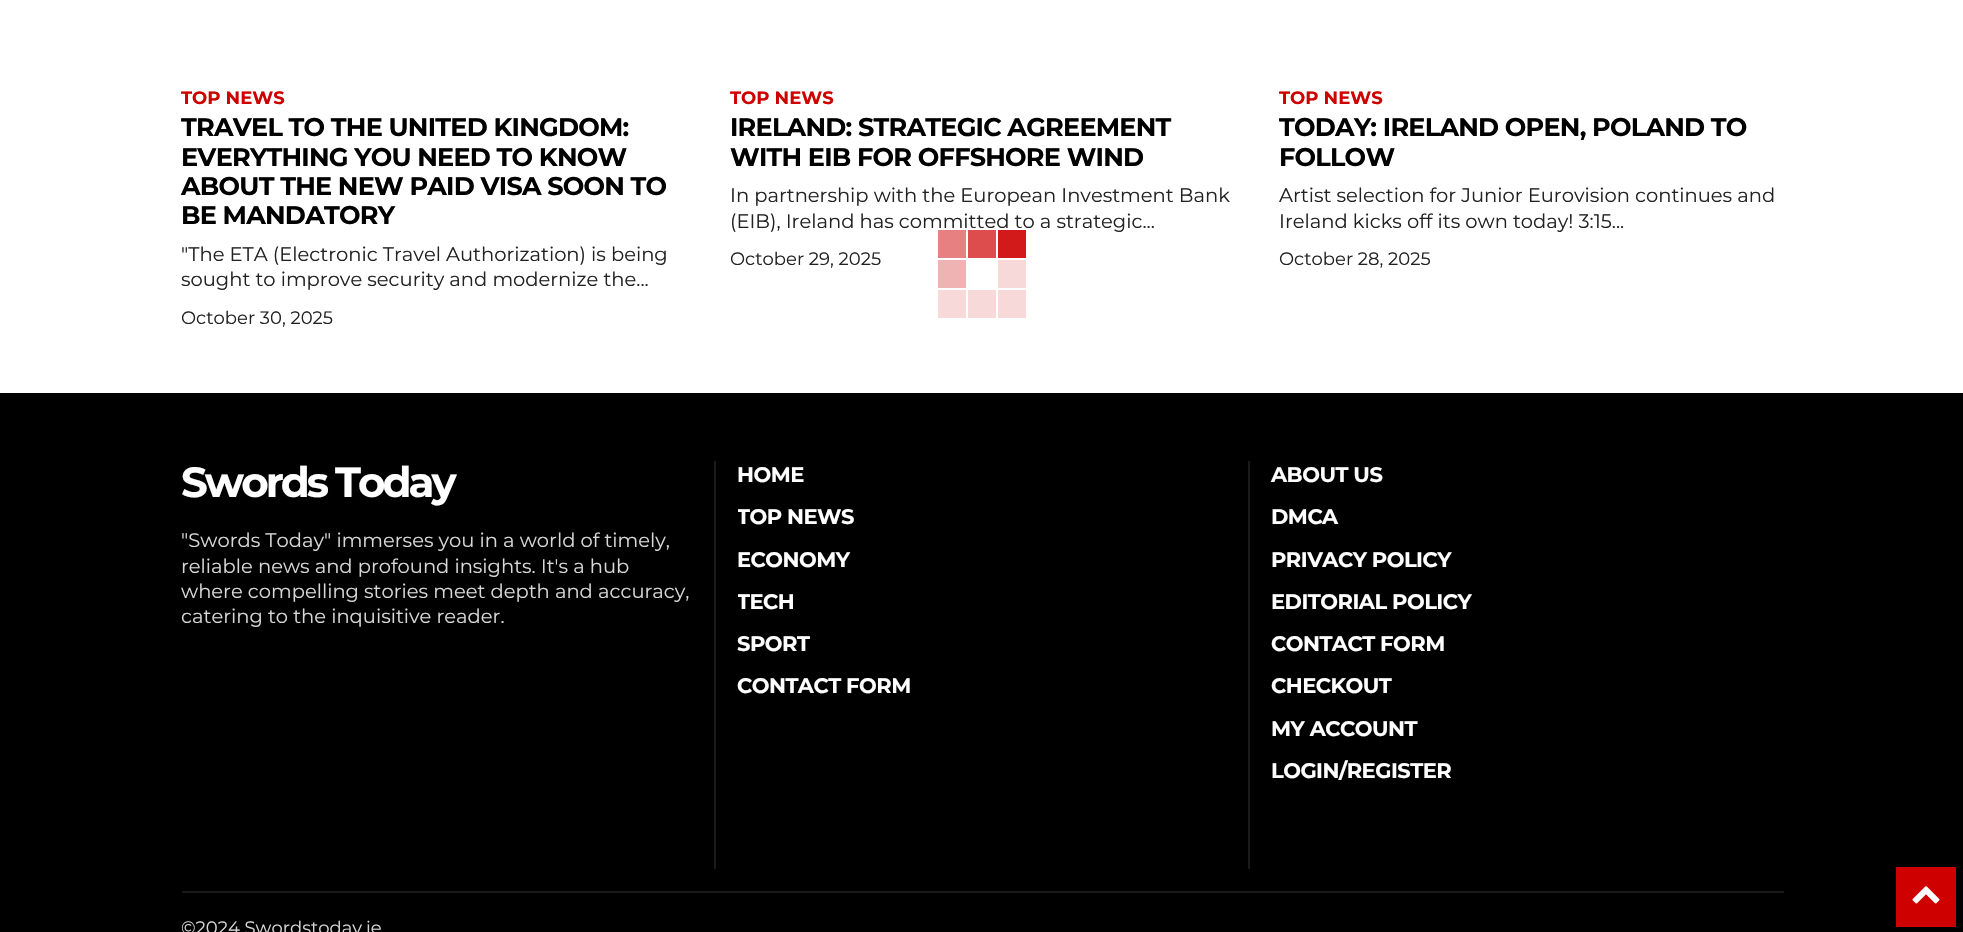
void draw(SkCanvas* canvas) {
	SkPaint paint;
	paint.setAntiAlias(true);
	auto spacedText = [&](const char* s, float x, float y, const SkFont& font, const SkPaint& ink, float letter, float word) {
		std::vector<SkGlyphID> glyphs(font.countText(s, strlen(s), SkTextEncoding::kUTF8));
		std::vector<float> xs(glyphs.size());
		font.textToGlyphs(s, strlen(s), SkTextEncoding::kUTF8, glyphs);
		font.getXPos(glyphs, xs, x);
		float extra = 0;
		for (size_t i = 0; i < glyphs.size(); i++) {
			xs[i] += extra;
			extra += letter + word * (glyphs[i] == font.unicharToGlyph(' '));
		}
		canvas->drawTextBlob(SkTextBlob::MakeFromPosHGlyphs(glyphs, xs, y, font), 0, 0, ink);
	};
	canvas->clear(0xffffffff);
	SkFont f1(fontMgr->matchFamilyStyle("Montserrat", SkFontStyle::Bold()), 18);
	f1.setSubpixel(true);
	paint.setColor(0xffce0000);
	canvas->drawString("TOP NEWS", 181, 104, f1, paint);
	SkFont f2(fontMgr->matchFamilyStyle("Montserrat", SkFontStyle::Bold()), 25.5);
	f2.setSubpixel(true);
	paint.setColor(0xff000000);
	spacedText("TRAVEL TO THE UNITED KINGDOM:", 181, 136, f2, paint, -0.75, 0);
	spacedText("EVERYTHING YOU NEED TO KNOW", 181, 166, f2, paint, -0.75, 0);
	spacedText("ABOUT THE NEW PAID VISA SOON TO", 181, 195, f2, paint, -0.75, 0);
	spacedText("BE MANDATORY", 181, 224, f2, paint, -0.75, 0);
	SkFont f3(fontMgr->matchFamilyStyle("Montserrat", SkFontStyle::Normal()), 19.5);
	f3.setSubpixel(true);
	paint.setColor(0xff222222);
	canvas->drawString("\"The ETA (Electronic Travel Authorization) is being", 181, 261, f3, paint);
	canvas->drawString("sought to improve security and modernize the...", 181, 286, f3, paint);
	SkFont f4(fontMgr->matchFamilyStyle("Montserrat", SkFontStyle::Normal()), 18);
	f4.setSubpixel(true);
	canvas->drawString("October 30, 2025", 181, 324, f4, paint);
	paint.setColor(0xffce0000);
	canvas->drawString("TOP NEWS", 730, 104, f1, paint);
	paint.setColor(0xff000000);
	spacedText("IRELAND: STRATEGIC AGREEMENT", 730, 136, f2, paint, -0.75, 0);
	spacedText("WITH EIB FOR OFFSHORE WIND", 730, 166, f2, paint, -0.75, 0);
	paint.setColor(0xff222222);
	canvas->drawString("In partnership with the European Investment Bank", 730, 202, f3, paint);
	canvas->drawString("(EIB), Ireland has committed to a strategic...", 730, 228, f3, paint);
	canvas->drawString("October 29, 2025", 730, 265, f4, paint);
	paint.setColor(0xffce0000);
	canvas->drawString("TOP NEWS", 1279, 104, f1, paint);
	paint.setColor(0xff000000);
	spacedText("TODAY: IRELAND OPEN, POLAND TO", 1279, 136, f2, paint, -0.75, 0);
	spacedText("FOLLOW", 1279, 166, f2, paint, -0.75, 0);
	paint.setColor(0xff222222);
	canvas->drawString("Artist selection for Junior Eurovision continues and", 1279, 202, f3, paint);
	canvas->drawString("Ireland kicks off its own today! 3:15...", 1279, 228, f3, paint);
	canvas->drawString("October 28, 2025", 1279, 265, f4, paint);
	paint.setColor(0xffe78080);
	canvas->drawRect(SkRect::MakeXYWH(938, 230, 28, 28), paint);
	paint.setColor(0xffdd4d4d);
	canvas->drawRect(SkRect::MakeXYWH(968, 230, 28, 28), paint);
	paint.setColor(0xffd31a1a);
	canvas->drawRect(SkRect::MakeXYWH(998, 230, 28, 28), paint);
	paint.setColor(0xfff0b3b3);
	canvas->drawRect(SkRect::MakeXYWH(938, 260, 28, 28), paint);
	paint.setColor(0xfff8d9d9);
	canvas->drawRect(SkRect::MakeXYWH(998, 260, 28, 28), paint);
	canvas->drawRect(SkRect::MakeXYWH(938, 290, 28, 28), paint);
	canvas->drawRect(SkRect::MakeXYWH(968, 290, 28, 28), paint);
	canvas->drawRect(SkRect::MakeXYWH(998, 290, 28, 28), paint);
	paint.setColor(0xff000000);
	canvas->drawRect(SkRect::MakeXYWH(0, 393, 1963, 539), paint);
	paint.setColor(0xff1a1a1a);
	canvas->drawRect(SkRect::MakeXYWH(182, 891, 1602, 2), paint);
	canvas->drawRect(SkRect::MakeXYWH(714, 461, 2, 408), paint);
	SkFont f5(fontMgr->matchFamilyStyle("Montserrat", SkFontStyle::Bold()), 42);
	f5.setSubpixel(true);
	paint.setColor(0xffffffff);
	spacedText("Swords Today", 181, 497, f5, paint, -3, 0);
	paint.setColor(0xffd8d8d8);
	canvas->drawString("\"Swords Today\" immerses you in a world of timely,", 181, 547, f3, paint);
	canvas->drawString("reliable news and profound insights. It's a hub", 181, 573, f3, paint);
	canvas->drawString("where compelling stories meet depth and accuracy,", 181, 598, f3, paint);
	canvas->drawString("catering to the inquisitive reader.", 181, 623, f3, paint);
	paint.setColor(0xff1a1a1a);
	canvas->drawRect(SkRect::MakeXYWH(1248, 461, 2, 408), paint);
	SkFont f6(fontMgr->matchFamilyStyle("Montserrat", SkFontStyle::Bold()), 21);
	f6.setSubpixel(true);
	paint.setColor(0xffffffff);
	spacedText("HOME", 737, 482, f6, paint, -0.5, 0);
	canvas->save();
	canvas->clipRect(SkRect::MakeXYWH(738, 461, 488, 240));
	spacedText("TOP NEWS", 737, 524, f6, paint, -0.5, 0);
	canvas->restore();
	spacedText("ECONOMY", 737, 567, f6, paint, -0.5, 0);
	canvas->save();
	canvas->clipRect(SkRect::MakeXYWH(738, 461, 488, 240));
	spacedText("TECH", 737, 609, f6, paint, -0.5, 0);
	canvas->restore();
	spacedText("SPORT", 737, 651, f6, paint, -0.5, 0);
	spacedText("CONTACT FORM", 737, 693, f6, paint, -0.5, 0);
	spacedText("ABOUT US", 1271, 482, f6, paint, -0.5, 0);
	spacedText("DMCA", 1271, 524, f6, paint, -0.5, 0);
	spacedText("PRIVACY POLICY", 1271, 567, f6, paint, -0.5, 0);
	spacedText("EDITORIAL POLICY", 1271, 609, f6, paint, -0.5, 0);
	spacedText("CONTACT FORM", 1271, 651, f6, paint, -0.5, 0);
	spacedText("CHECKOUT", 1271, 693, f6, paint, -0.5, 0);
	spacedText("MY ACCOUNT", 1271, 736, f6, paint, -0.5, 0);
	spacedText("LOGIN/REGISTER", 1271, 778, f6, paint, -0.5, 0);
	paint.setColor(0xffd8d8d8);
	canvas->drawString("©2024 Swordstoday.ie", 181, 934, f4, paint);
	paint.setColor(0xffce0000);
	canvas->drawRect(SkRect::MakeXYWH(1896, 867, 60, 60), paint);
	canvas->drawImageRect(SkImages::DeferredFromEncodedData(SkData::MakeFromFileName("img1.png")), SkRect::MakeXYWH(1912, 886, 28, 18), SkSamplingOptions());
}
